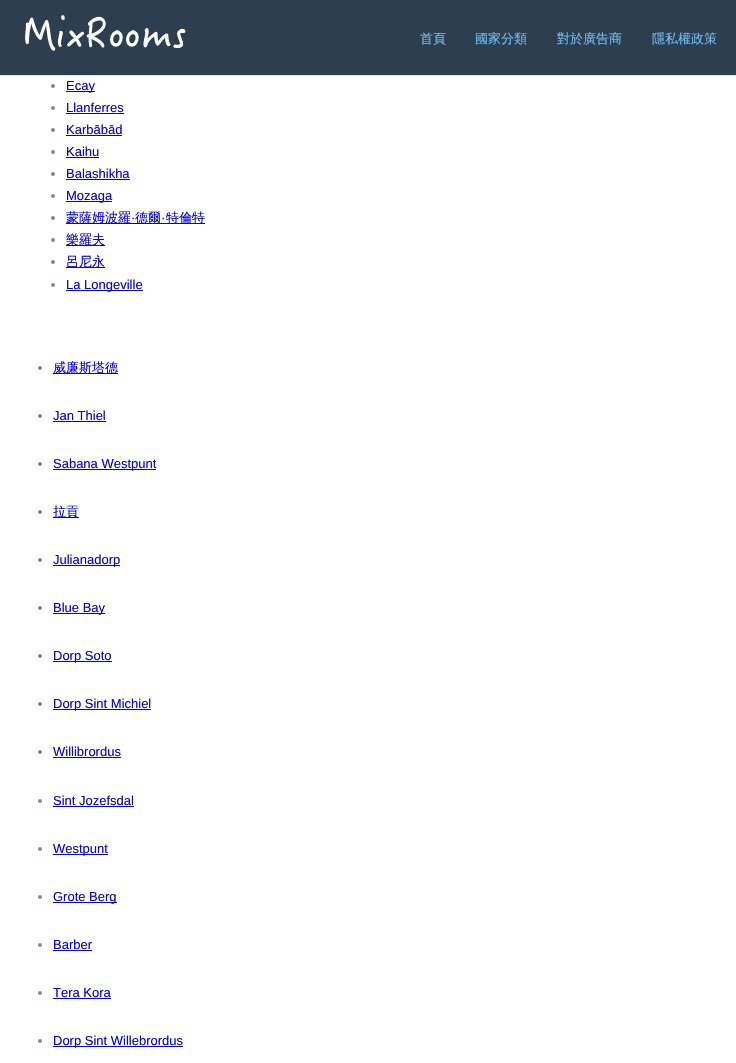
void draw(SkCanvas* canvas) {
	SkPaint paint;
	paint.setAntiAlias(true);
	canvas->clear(0xffffffff);
	paint.setColor(0x1a000000);
	paint.setMaskFilter(SkMaskFilter::MakeBlur(kNormal_SkBlurStyle, 0.5));
	canvas->drawRect(SkRect::MakeXYWH(0, 1, 736, 75), paint);
	paint.setMaskFilter(nullptr);
	paint.setColor(0xff2d3e50);
	canvas->drawRect(SkRect::MakeXYWH(0, 0, 736, 75), paint);
	canvas->drawImageRect(SkImages::DeferredFromEncodedData(SkData::MakeFromFileName("img1.png")), SkRect::MakeXYWH(25, 15, 161, 36), SkSamplingOptions());
	SkFont f1(fontMgr->matchFamilyStyle("WenQuanYi Zen Hei", SkFontStyle(500, SkFontStyle::kNormal_Width, SkFontStyle::kUpright_Slant)), 13);
	f1.setSubpixel(true);
	paint.setColor(0xff6fbef3);
	canvas->drawString("首頁", 420, 43, f1, paint);
	canvas->drawString("國家分類", 475, 43, f1, paint);
	canvas->drawString("對於廣告商", 557, 43, f1, paint);
	canvas->drawString("隱私權政策", 652, 43, f1, paint);
	paint.setColor(0xff7f8c8d);
	canvas->drawCircle(53, 86, 2, paint);
	paint.setColor(0xff0000ee);
	canvas->drawRect(SkRect::MakeXYWH(66, 91, 29, 1), paint);
	SkFont f2(fontMgr->matchFamilyStyle("Liberation Sans", SkFontStyle::Normal()), 13);
	f2.setSubpixel(true);
	canvas->drawString("Ecay", 66, 90, f2, paint);
	paint.setColor(0xff7f8c8d);
	canvas->drawCircle(53, 108, 2, paint);
	paint.setColor(0xff0000ee);
	canvas->drawString("Llanferres", 66, 112, f2, paint);
	canvas->drawRect(SkRect::MakeXYWH(66, 113, 58, 1), paint);
	paint.setColor(0xff7f8c8d);
	canvas->drawCircle(53, 130, 2, paint);
	paint.setColor(0xff0000ee);
	canvas->drawString("Karbābād", 66, 134, f2, paint);
	canvas->drawRect(SkRect::MakeXYWH(66, 135, 56, 1), paint);
	paint.setColor(0xff7f8c8d);
	canvas->drawCircle(53, 152, 2, paint);
	paint.setColor(0xff0000ee);
	canvas->drawString("Kaihu", 66, 156, f2, paint);
	canvas->drawRect(SkRect::MakeXYWH(66, 157, 33, 1), paint);
	paint.setColor(0xff7f8c8d);
	canvas->drawCircle(53, 174, 2, paint);
	paint.setColor(0xff0000ee);
	canvas->drawString("Balashikha", 66, 178, f2, paint);
	canvas->drawRect(SkRect::MakeXYWH(66, 179, 64, 1), paint);
	paint.setColor(0xff7f8c8d);
	canvas->drawCircle(53, 196, 2, paint);
	paint.setColor(0xff0000ee);
	canvas->drawRect(SkRect::MakeXYWH(66, 201, 46, 1), paint);
	canvas->drawString("Mozaga", 66, 200, f2, paint);
	paint.setColor(0xff7f8c8d);
	canvas->drawCircle(53, 218, 2, paint);
	paint.setColor(0xff0000ee);
	canvas->drawRect(SkRect::MakeXYWH(66, 223, 139, 1), paint);
	canvas->drawString("蒙薩姆波羅", 66, 222, f1, paint);
	canvas->drawString("·", 131, 222, f2, paint);
	canvas->drawString("德爾", 135, 222, f1, paint);
	canvas->drawString("·", 161, 222, f2, paint);
	canvas->drawString("特倫特", 166, 222, f1, paint);
	paint.setColor(0xff7f8c8d);
	canvas->drawCircle(53, 240, 2, paint);
	paint.setColor(0xff0000ee);
	canvas->drawRect(SkRect::MakeXYWH(66, 245, 39, 1), paint);
	canvas->drawString("樂羅夫", 66, 244, f1, paint);
	paint.setColor(0xff7f8c8d);
	canvas->drawCircle(53, 262, 2, paint);
	paint.setColor(0xff0000ee);
	canvas->drawRect(SkRect::MakeXYWH(66, 267, 39, 1), paint);
	canvas->drawString("呂尼永", 66, 266, f1, paint);
	paint.setColor(0xff7f8c8d);
	canvas->drawCircle(53, 285, 2, paint);
	paint.setColor(0xff0000ee);
	canvas->drawRect(SkRect::MakeXYWH(66, 290, 77, 1), paint);
	canvas->drawString("La Longeville", 66, 289, f2, paint);
	paint.setColor(0xff7f8c8d);
	canvas->drawCircle(40, 368, 2, paint);
	paint.setColor(0xff0000ee);
	canvas->drawRect(SkRect::MakeXYWH(53, 373, 65, 1), paint);
	canvas->drawString("威廉斯塔德", 53, 372, f1, paint);
	paint.setColor(0xff7f8c8d);
	canvas->drawCircle(40, 416, 2, paint);
	paint.setColor(0xff0000ee);
	canvas->drawString("Jan Thiel", 53, 420, f2, paint);
	canvas->drawRect(SkRect::MakeXYWH(53, 421, 53, 1), paint);
	paint.setColor(0xff7f8c8d);
	canvas->drawCircle(40, 464, 2, paint);
	paint.setColor(0xff0000ee);
	canvas->drawRect(SkRect::MakeXYWH(53, 469, 103, 1), paint);
	canvas->drawString("Sabana Westpunt", 53, 468, f2, paint);
	paint.setColor(0xff7f8c8d);
	canvas->drawCircle(40, 512, 2, paint);
	paint.setColor(0xff0000ee);
	canvas->drawRect(SkRect::MakeXYWH(53, 517, 26, 1), paint);
	canvas->drawString("拉貢", 53, 516, f1, paint);
	paint.setColor(0xff7f8c8d);
	canvas->drawCircle(40, 560, 2, paint);
	paint.setColor(0xff0000ee);
	canvas->drawRect(SkRect::MakeXYWH(53, 565, 67, 1), paint);
	canvas->drawString("Julianadorp", 53, 564, f2, paint);
	paint.setColor(0xff7f8c8d);
	canvas->drawCircle(40, 608, 2, paint);
	paint.setColor(0xff0000ee);
	canvas->drawRect(SkRect::MakeXYWH(53, 613, 52, 1), paint);
	canvas->drawString("Blue Bay", 53, 612, f2, paint);
	paint.setColor(0xff7f8c8d);
	canvas->drawCircle(40, 656, 2, paint);
	paint.setColor(0xff0000ee);
	canvas->drawRect(SkRect::MakeXYWH(53, 661, 59, 1), paint);
	canvas->drawString("Dorp Soto", 53, 660, f2, paint);
	paint.setColor(0xff7f8c8d);
	canvas->drawCircle(40, 704, 2, paint);
	paint.setColor(0xff0000ee);
	canvas->drawRect(SkRect::MakeXYWH(53, 709, 98, 1), paint);
	canvas->drawString("Dorp Sint Michiel", 53, 708, f2, paint);
	paint.setColor(0xff7f8c8d);
	canvas->drawCircle(40, 752, 2, paint);
	paint.setColor(0xff0000ee);
	canvas->drawString("Willibrordus", 53, 756, f2, paint);
	canvas->drawRect(SkRect::MakeXYWH(53, 757, 68, 1), paint);
	paint.setColor(0xff7f8c8d);
	canvas->drawCircle(40, 801, 2, paint);
	paint.setColor(0xff0000ee);
	canvas->drawString("Sint Jozefsdal", 53, 805, f2, paint);
	canvas->drawRect(SkRect::MakeXYWH(53, 806, 81, 1), paint);
	paint.setColor(0xff7f8c8d);
	canvas->drawCircle(40, 849, 2, paint);
	paint.setColor(0xff0000ee);
	canvas->drawRect(SkRect::MakeXYWH(53, 854, 55, 1), paint);
	canvas->drawString("Westpunt", 53, 853, f2, paint);
	paint.setColor(0xff7f8c8d);
	canvas->drawCircle(40, 897, 2, paint);
	paint.setColor(0xff0000ee);
	canvas->drawRect(SkRect::MakeXYWH(53, 902, 64, 1), paint);
	canvas->drawString("Grote Berg", 53, 901, f2, paint);
	paint.setColor(0xff7f8c8d);
	canvas->drawCircle(40, 945, 2, paint);
	paint.setColor(0xff0000ee);
	canvas->drawString("Barber", 53, 949, f2, paint);
	canvas->drawRect(SkRect::MakeXYWH(53, 950, 39, 1), paint);
	paint.setColor(0xff7f8c8d);
	canvas->drawCircle(40, 993, 2, paint);
	paint.setColor(0xff0000ee);
	canvas->drawString("Tera Kora", 53, 997, f2, paint);
	canvas->drawRect(SkRect::MakeXYWH(53, 998, 58, 1), paint);
	paint.setColor(0xff7f8c8d);
	canvas->drawCircle(40, 1041, 2, paint);
	paint.setColor(0xff0000ee);
	canvas->drawRect(SkRect::MakeXYWH(53, 1046, 130, 1), paint);
	canvas->drawString("Dorp Sint Willebrordus", 53, 1045, f2, paint);
}
